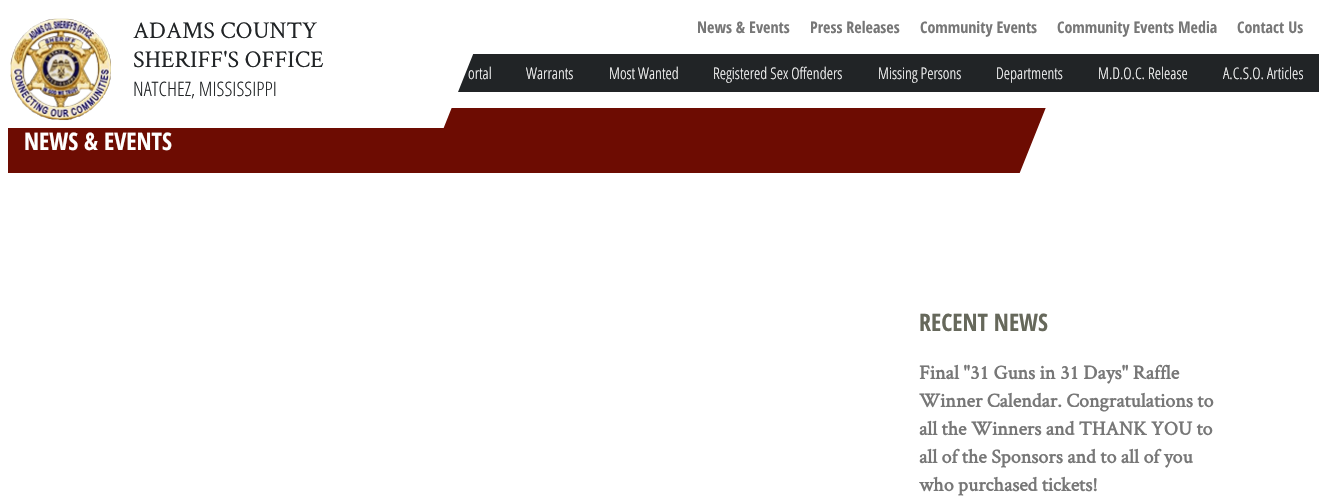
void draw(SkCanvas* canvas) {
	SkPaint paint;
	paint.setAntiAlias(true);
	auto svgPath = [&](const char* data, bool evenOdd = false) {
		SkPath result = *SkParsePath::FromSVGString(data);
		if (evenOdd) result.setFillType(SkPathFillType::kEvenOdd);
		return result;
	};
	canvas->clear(0xffffffff);
	paint.setColor(0xff212426);
	canvas->drawRect(SkRect::MakeXYWH(458, 54, 861, 38), paint);
	canvas->save();
	canvas->clipRect(SkRect::MakeXYWH(8, 108, 1146, 65));
	paint.setColor(0xff6d0c02);
	canvas->drawPath(svgPath("M8 108H1040L581 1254H8Z"), paint);
	paint.setStroke(true);
	paint.setStrokeWidth(11.5);
	canvas->drawPath(svgPath("M8 108H1039.5L581 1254.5H8Z"), paint);
	canvas->restore();
	canvas->save();
	canvas->clipRect(SkRect::MakeXYWH(8, 16, 531, 112));
	paint.setStroke(false);
	paint.setColor(0xffffffff);
	canvas->drawPath(svgPath("M8 16H486L273 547H8Z"), paint);
	paint.setStroke(true);
	paint.setStrokeWidth(5.3);
	canvas->drawPath(svgPath("M8 16H485.5L273.5 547H8Z"), paint);
	canvas->restore();
	canvas->drawImageRect(SkImages::DeferredFromEncodedData(SkData::MakeFromFileName("img1.png")), SkRect::MakeXYWH(10, 18, 101, 103), SkSamplingOptions());
	SkFont f1(fontMgr->matchFamilyStyle("Crimson Text", SkFontStyle::Normal()), 24);
	f1.setSubpixel(true);
	paint.setStroke(false);
	paint.setColor(0xff212426);
	canvas->drawString("ADAMS COUNTY", 133, 38, f1, paint);
	canvas->drawString("SHERIFF'S OFFICE", 133, 67, f1, paint);
	SkFont f2(fontMgr->matchFamilyStyle("Open Sans Condensed", SkFontStyle(300, SkFontStyle::kNormal_Width, SkFontStyle::kUpright_Slant)), 20);
	f2.setSubpixel(true);
	canvas->drawString("NATCHEZ, MISSISSIPPI", 133, 96, f2, paint);
	SkFont f3(fontMgr->matchFamilyStyle("Open Sans Condensed", SkFontStyle::Bold()), 16);
	f3.setSubpixel(true);
	paint.setColor(0xff777777);
	canvas->drawString("News & Events", 697, 33, f3, paint);
	canvas->drawString("Press Releases", 810, 33, f3, paint);
	canvas->drawString("Community Events", 920, 33, f3, paint);
	canvas->drawString("Community Events Media", 1057, 33, f3, paint);
	canvas->drawString("Contact Us", 1237, 33, f3, paint);
	SkFont f4(fontMgr->matchFamilyStyle("Open Sans Condensed", SkFontStyle(300, SkFontStyle::kNormal_Width, SkFontStyle::kUpright_Slant)), 16);
	f4.setSubpixel(true);
	paint.setColor(0xffffffff);
	canvas->drawString("ortal", 468, 79, f4, paint);
	canvas->drawString("Warrants", 526, 79, f4, paint);
	canvas->drawString("Most Wanted", 609, 79, f4, paint);
	canvas->drawString("Registered Sex Offenders", 713, 79, f4, paint);
	canvas->drawString("Missing Persons", 878, 79, f4, paint);
	canvas->drawString("Departments", 996, 79, f4, paint);
	canvas->drawString("M.D.O.C. Release", 1098, 79, f4, paint);
	canvas->drawString("A.C.S.O. Articles", 1223, 79, f4, paint);
	SkFont f5(fontMgr->matchFamilyStyle("Open Sans Condensed", SkFontStyle::Bold()), 24);
	f5.setSubpixel(true);
	canvas->drawString("NEWS & EVENTS", 24, 150, f5, paint);
	paint.setColor(0xff66685b);
	canvas->drawString("RECENT NEWS", 919, 331, f5, paint);
	SkFont f6(fontMgr->matchFamilyStyle("Crimson Text", SkFontStyle::Bold()), 20);
	f6.setSubpixel(true);
	paint.setColor(0xff777777);
	canvas->drawString("Final \"31 Guns in 31 Days\" Raffle", 919, 379, f6, paint);
	canvas->drawString("Winner Calendar. Congratulations to", 919, 407, f6, paint);
	canvas->drawString("all the Winners and THANK YOU to", 919, 435, f6, paint);
	canvas->drawString("all of the Sponsors and to all of you", 919, 463, f6, paint);
	canvas->drawString("who purchased tickets!", 919, 491, f6, paint);
}
